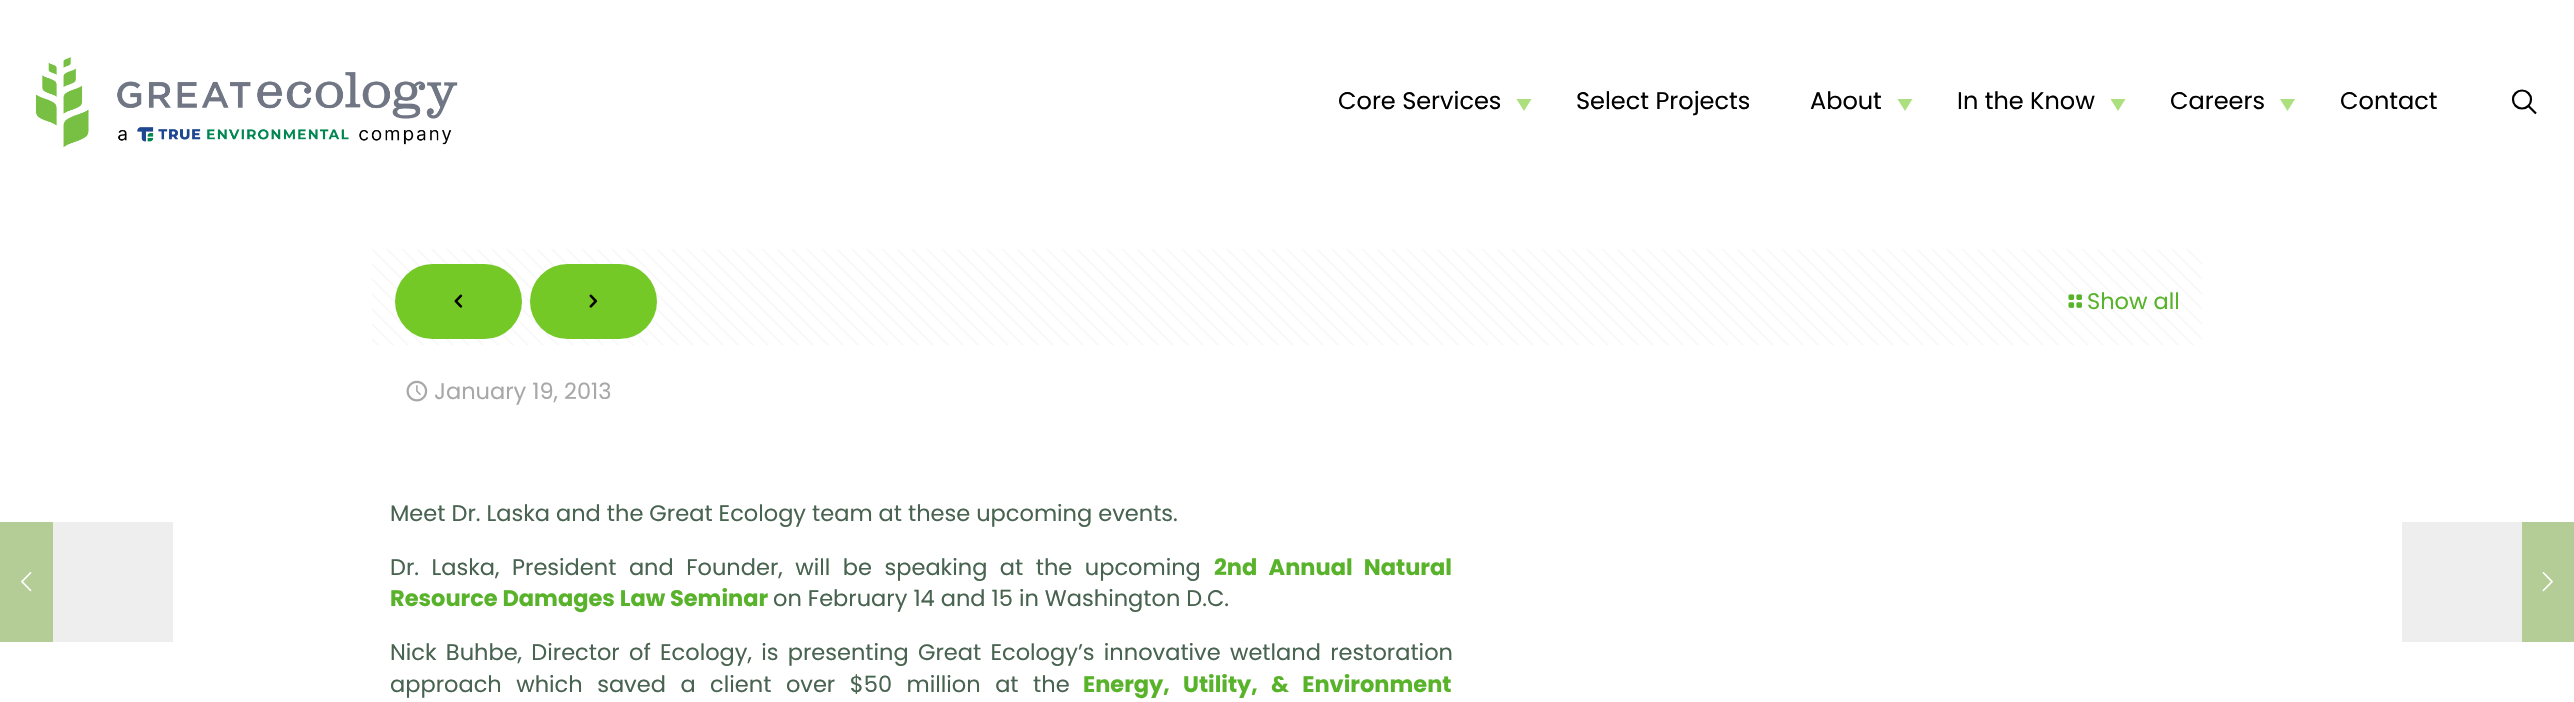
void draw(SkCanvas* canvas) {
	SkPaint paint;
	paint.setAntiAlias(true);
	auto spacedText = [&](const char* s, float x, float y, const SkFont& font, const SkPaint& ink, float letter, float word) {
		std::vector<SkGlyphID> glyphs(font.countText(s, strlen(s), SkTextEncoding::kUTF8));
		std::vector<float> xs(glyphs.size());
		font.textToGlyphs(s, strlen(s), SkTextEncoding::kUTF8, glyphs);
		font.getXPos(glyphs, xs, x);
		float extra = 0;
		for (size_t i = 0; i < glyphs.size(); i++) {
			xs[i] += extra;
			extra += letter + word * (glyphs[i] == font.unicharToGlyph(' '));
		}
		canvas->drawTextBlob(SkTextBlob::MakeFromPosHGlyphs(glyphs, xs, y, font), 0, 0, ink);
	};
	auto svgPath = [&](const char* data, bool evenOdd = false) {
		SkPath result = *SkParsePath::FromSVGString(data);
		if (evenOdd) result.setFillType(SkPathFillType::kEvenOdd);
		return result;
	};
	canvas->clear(0xffffffff);
	paint.setColor(0xffb4cc95);
	canvas->drawRect(SkRect::MakeXYWH(0, 522, 53, 120), paint);
	canvas->drawImageRect(SkImages::DeferredFromEncodedData(SkData::MakeFromFileName("img1.png")), SkRect::MakeXYWH(21, 572, 11, 20), SkSamplingOptions());
	paint.setColor(0xffeeeeee);
	canvas->drawRect(SkRect::MakeXYWH(53, 522, 120, 120), paint);
	canvas->drawImageRect(SkImages::DeferredFromEncodedData(SkData::MakeFromFileName("img2.png")), SkRect::MakeXYWH(35, 57, 423, 91), SkSamplingOptions());
	SkFont f1(fontMgr->matchFamilyStyle("Poppins", SkFontStyle::Normal()), 24);
	f1.setSubpixel(true);
	paint.setColor(0xff000000);
	canvas->drawString("Core Services", 1338, 109, f1, paint);
	paint.setColor(0xffacdf7d);
	canvas->drawPath(svgPath("M1516.5 99H1531.5L1524 111Z"), paint);
	paint.setColor(0xff000000);
	canvas->drawString("Select Projects", 1576, 109, f1, paint);
	canvas->drawString("About", 1810, 109, f1, paint);
	paint.setColor(0xffacdf7d);
	canvas->drawPath(svgPath("M1897.5 99H1912.5L1905 111Z"), paint);
	paint.setColor(0xff000000);
	canvas->drawString("In the Know", 1957, 109, f1, paint);
	paint.setColor(0xffacdf7d);
	canvas->drawPath(svgPath("M2110.5 99H2125.5L2118 111Z"), paint);
	paint.setColor(0xff000000);
	canvas->drawString("Careers", 2170, 109, f1, paint);
	paint.setColor(0xffacdf7d);
	canvas->drawPath(svgPath("M2280 99H2295L2287.5 111Z"), paint);
	paint.setColor(0xff000000);
	canvas->drawString("Contact", 2340, 109, f1, paint);
	paint.setStroke(true);
	paint.setStrokeWidth(2.2);
	canvas->drawCircle(2522, 99.5, 9, paint);
	canvas->drawPath(svgPath("M2528.5 106L2536 113.5"), paint);
	canvas->drawImageRect(SkImages::DeferredFromEncodedData(SkData::MakeFromFileName("img3.png")), SkRect::MakeXYWH(372, 249, 1830, 96), SkSamplingOptions());
	paint.setStroke(false);
	paint.setColor(0xff74c926);
	canvas->drawRoundRect(SkRect::MakeXYWH(395, 264, 127, 75), 37.5, 37.5, paint);
	canvas->drawImageRect(SkImages::DeferredFromEncodedData(SkData::MakeFromFileName("img4.png")), SkRect::MakeXYWH(454, 294, 9, 14), SkSamplingOptions());
	canvas->drawRoundRect(SkRect::MakeXYWH(530, 264, 127, 75), 37.5, 37.5, paint);
	canvas->drawImageRect(SkImages::DeferredFromEncodedData(SkData::MakeFromFileName("img5.png")), SkRect::MakeXYWH(589, 294, 9, 14), SkSamplingOptions());
	canvas->drawImageRect(SkImages::DeferredFromEncodedData(SkData::MakeFromFileName("img6.png")), SkRect::MakeXYWH(2068, 294, 14, 14), SkSamplingOptions());
	SkFont f2(fontMgr->matchFamilyStyle("Poppins", SkFontStyle::Normal()), 22.5);
	f2.setSubpixel(true);
	paint.setColor(0xff58b32b);
	canvas->drawString("Show all", 2087, 309, f2, paint);
	canvas->drawImageRect(SkImages::DeferredFromEncodedData(SkData::MakeFromFileName("img7.png")), SkRect::MakeXYWH(406, 380, 22, 22), SkSamplingOptions());
	paint.setColor(0xffa8a8a8);
	canvas->drawString("January 19, 2013", 434, 399, f2, paint);
	paint.setColor(0xff486350);
	canvas->drawString("Meet Dr. Laska and the Great Ecology team at these upcoming events.", 390, 521, f2, paint);
	spacedText("Dr. Laska, President and Founder, will be speaking at the upcoming", 390, 575, f2, paint, 0, 6.5);
	SkFont f3(fontMgr->matchFamilyStyle("Poppins", SkFontStyle::Bold()), 22.5);
	f3.setSubpixel(true);
	paint.setColor(0xff58b32b);
	spacedText("2nd Annual Natural", 1214, 575, f3, paint, 0, 6.5);
	canvas->drawString("Resource Damages Law Seminar", 390, 606, f3, paint);
	paint.setColor(0xff486350);
	canvas->drawString("on February 14 and 15 in Washington D.C.", 773, 606, f2, paint);
	spacedText("Nick Buhbe, Director of Ecology, is presenting Great Ecology’s innovative wetland restoration", 390, 660, f2, paint, 0, 3.25);
	spacedText("approach which saved a client over $50 million at the", 390, 692, f2, paint, 0, 8.5);
	paint.setColor(0xff58b32b);
	spacedText("Energy, Utility, & Environment", 1083, 692, f3, paint, 0, 8.5);
	paint.setColor(0xffeeeeee);
	canvas->drawRect(SkRect::MakeXYWH(2402, 522, 120, 120), paint);
	paint.setColor(0xffb4cc95);
	canvas->drawRect(SkRect::MakeXYWH(2522, 522, 52, 120), paint);
	canvas->drawImageRect(SkImages::DeferredFromEncodedData(SkData::MakeFromFileName("img8.png")), SkRect::MakeXYWH(2542, 572, 11, 20), SkSamplingOptions());
}
